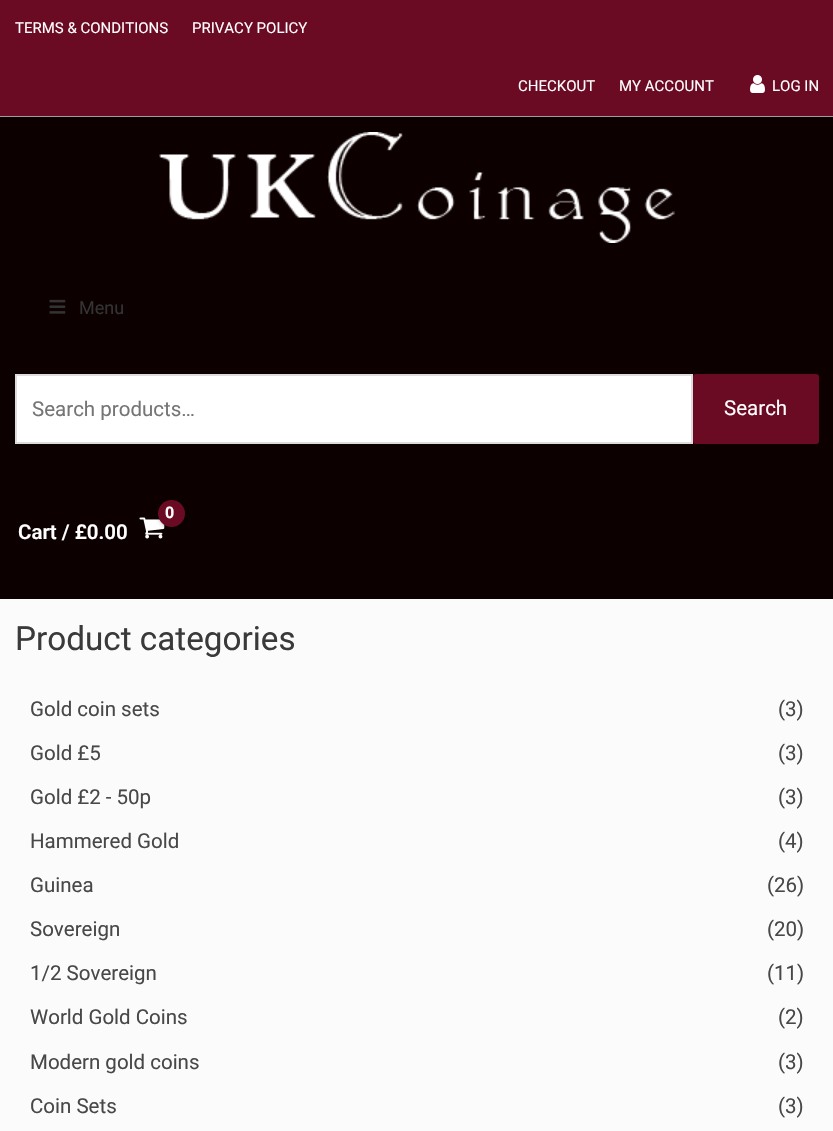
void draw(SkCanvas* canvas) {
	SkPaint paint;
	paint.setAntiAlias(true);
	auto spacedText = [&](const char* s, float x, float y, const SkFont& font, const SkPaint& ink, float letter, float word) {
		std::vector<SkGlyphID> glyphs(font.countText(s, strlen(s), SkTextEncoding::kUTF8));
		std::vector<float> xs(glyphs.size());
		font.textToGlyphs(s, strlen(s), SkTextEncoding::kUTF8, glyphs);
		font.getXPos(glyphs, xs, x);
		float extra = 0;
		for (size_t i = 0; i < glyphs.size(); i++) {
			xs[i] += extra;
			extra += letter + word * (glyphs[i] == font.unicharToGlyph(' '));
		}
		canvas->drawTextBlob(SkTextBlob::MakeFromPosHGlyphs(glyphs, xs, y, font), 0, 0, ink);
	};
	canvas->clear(0xfffbfbfb);
	paint.setColor(0xff6b0a23);
	canvas->drawRect(SkRect::MakeXYWH(0, 0, 833, 116), paint);
	paint.setColor(0xff9e9e9e);
	canvas->drawRect(SkRect::MakeXYWH(0, 116, 833, 1), paint);
	SkFont f1(fontMgr->matchFamilyStyle("Roboto", SkFontStyle::Normal()), 15);
	f1.setSubpixel(true);
	paint.setColor(0xffffffff);
	canvas->drawString("TERMS & CONDITIONS", 15, 33, f1, paint);
	canvas->drawString("PRIVACY POLICY", 192, 33, f1, paint);
	canvas->drawString("CHECKOUT", 518, 91, f1, paint);
	canvas->drawString("MY ACCOUNT", 619, 91, f1, paint);
	canvas->drawImageRect(SkImages::DeferredFromEncodedData(SkData::MakeFromFileName("img1.png")), SkRect::MakeXYWH(750, 75, 15, 18), SkSamplingOptions());
	canvas->drawString("LOG IN", 772, 91, f1, paint);
	paint.setColor(0xff0c0000);
	canvas->drawRect(SkRect::MakeXYWH(0, 117, 833, 482), paint);
	canvas->drawImageRect(SkImages::DeferredFromEncodedData(SkData::MakeFromFileName("img2.png")), SkRect::MakeXYWH(159, 132, 516, 111), SkSamplingOptions());
	canvas->drawImageRect(SkImages::DeferredFromEncodedData(SkData::MakeFromFileName("img3.png")), SkRect::MakeXYWH(49, 299, 17, 15), SkSamplingOptions());
	SkFont f2(fontMgr->matchFamilyStyle("Roboto", SkFontStyle::Normal()), 18);
	f2.setSubpixel(true);
	paint.setColor(0xff333333);
	canvas->drawString("Menu", 79, 314, f2, paint);
	paint.setColor(0xffffffff);
	canvas->drawRect(SkRect::MakeXYWH(16, 375, 676, 68), paint);
	paint.setStroke(true);
	paint.setStrokeWidth(2);
	paint.setColor(0xffdddddd);
	canvas->drawRect(SkRect::MakeXYWH(16, 375, 676, 68), paint);
	canvas->save();
	canvas->clipRect(SkRect::MakeXYWH(32, 396, 639, 24));
	SkFont f3(fontMgr->matchFamilyStyle("Roboto", SkFontStyle::Normal()), 20.5);
	f3.setSubpixel(true);
	paint.setStroke(false);
	paint.setColor(0xff757575);
	canvas->drawString("Search products…", 32, 416, f3, paint);
	canvas->restore();
	paint.setColor(0xff6b0a23);
	canvas->drawRoundRect(SkRect::MakeXYWH(694, 375, 124, 68), 2, 2, paint);
	paint.setStroke(true);
	canvas->drawRoundRect(SkRect::MakeXYWH(694, 375, 124, 68), 2, 2, paint);
	paint.setStroke(false);
	paint.setColor(0xffffffff);
	canvas->drawString("Search", 724, 415, f3, paint);
	canvas->drawImageRect(SkImages::DeferredFromEncodedData(SkData::MakeFromFileName("img4.png")), SkRect::MakeXYWH(139, 517, 26, 22), SkSamplingOptions());
	paint.setColor(0x4d000000);
	paint.setMaskFilter(SkMaskFilter::MakeBlur(kNormal_SkBlurStyle, 2));
	canvas->drawRoundRect(SkRect::MakeXYWH(159, 501, 27, 27), 13.5, 13.5, paint);
	paint.setMaskFilter(nullptr);
	paint.setColor(0xff6b0a23);
	canvas->drawCircle(171.5, 513.5, 13.5, paint);
	SkFont f4(fontMgr->matchFamilyStyle("Roboto", SkFontStyle::Bold()), 16);
	f4.setSubpixel(true);
	paint.setColor(0xffffffff);
	spacedText("0", 165, 518, f4, paint, -1, 0);
	SkFont f5(fontMgr->matchFamilyStyle("Roboto", SkFontStyle(600, SkFontStyle::kNormal_Width, SkFontStyle::kUpright_Slant)), 20.5);
	f5.setSubpixel(true);
	canvas->drawString("Cart / £0.00", 18, 539, f5, paint);
	SkFont f6(fontMgr->matchFamilyStyle("Roboto", SkFontStyle::Normal()), 33.25);
	f6.setSubpixel(true);
	paint.setColor(0xff3a3a3a);
	canvas->drawString("Product categories", 15, 650, f6, paint);
	paint.setColor(0xff484848);
	canvas->drawString("Gold coin sets", 30, 716, f3, paint);
	canvas->drawString("(3)", 778, 716, f3, paint);
	canvas->drawString("Gold £5", 30, 760, f3, paint);
	canvas->drawString("(3)", 778, 760, f3, paint);
	canvas->drawString("Gold £2 - 50p", 30, 804, f3, paint);
	canvas->drawString("(3)", 778, 804, f3, paint);
	canvas->drawString("Hammered Gold", 30, 848, f3, paint);
	canvas->drawString("(4)", 778, 848, f3, paint);
	canvas->drawString("Guinea", 30, 892, f3, paint);
	canvas->drawString("(26)", 767, 892, f3, paint);
	canvas->drawString("Sovereign", 30, 936, f3, paint);
	canvas->drawString("(20)", 767, 936, f3, paint);
	canvas->drawString("1/2 Sovereign", 30, 980, f3, paint);
	canvas->drawString("(11)", 767, 980, f3, paint);
	canvas->drawString("World Gold Coins", 30, 1024, f3, paint);
	canvas->drawString("(2)", 778, 1024, f3, paint);
	canvas->drawString("Modern gold coins", 30, 1069, f3, paint);
	canvas->drawString("(3)", 778, 1069, f3, paint);
	canvas->drawString("Coin Sets", 30, 1113, f3, paint);
	canvas->drawString("(3)", 778, 1113, f3, paint);
}
